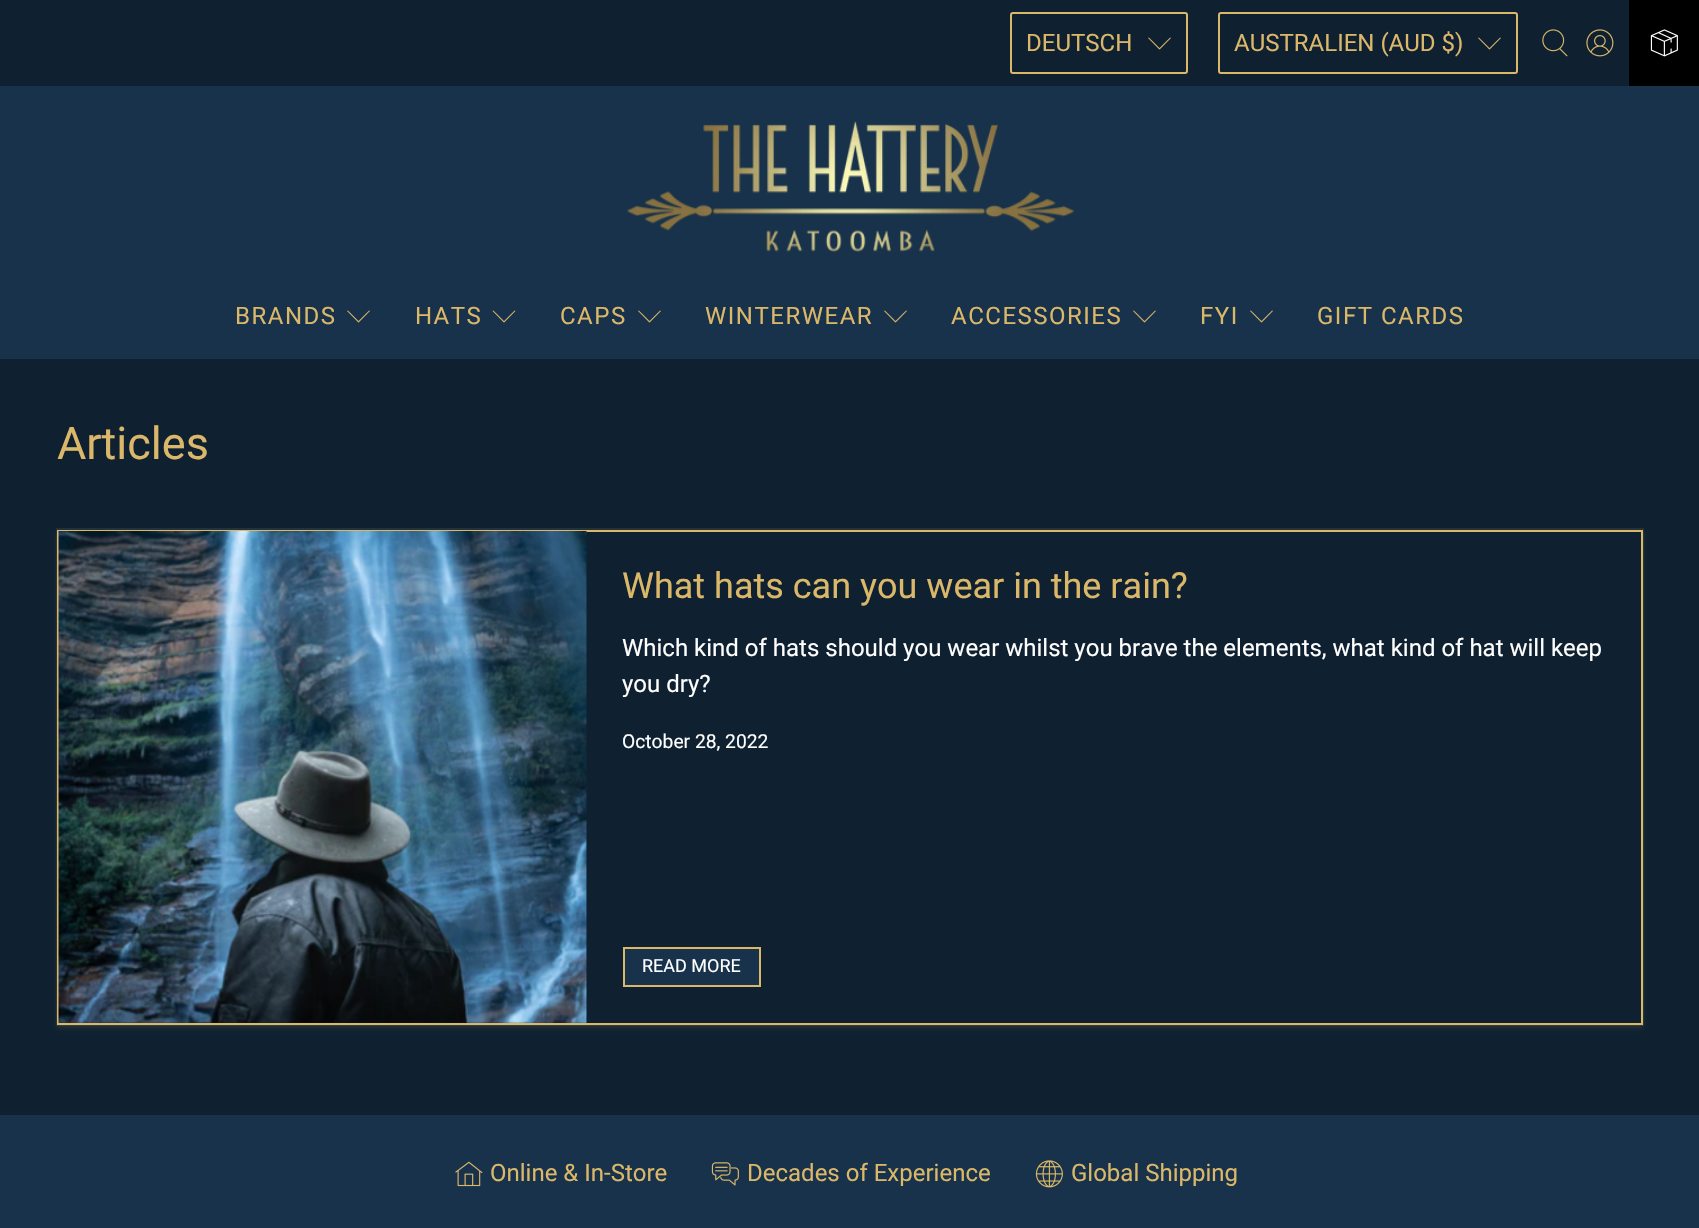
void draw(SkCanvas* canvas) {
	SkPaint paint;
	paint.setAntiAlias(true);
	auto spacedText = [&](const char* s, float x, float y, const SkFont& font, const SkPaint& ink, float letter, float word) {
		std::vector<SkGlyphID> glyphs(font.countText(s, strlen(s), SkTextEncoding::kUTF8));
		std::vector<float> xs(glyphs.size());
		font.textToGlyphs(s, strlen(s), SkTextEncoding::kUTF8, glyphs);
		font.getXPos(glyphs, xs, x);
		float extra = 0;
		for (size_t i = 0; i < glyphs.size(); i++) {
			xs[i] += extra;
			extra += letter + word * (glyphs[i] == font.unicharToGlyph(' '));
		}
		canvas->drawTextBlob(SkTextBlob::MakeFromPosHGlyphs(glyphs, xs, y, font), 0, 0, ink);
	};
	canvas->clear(0xff0f2131);
	paint.setStroke(true);
	paint.setStrokeWidth(2);
	paint.setColor(0xffdab769);
	canvas->drawRoundRect(SkRect::MakeXYWH(1011, 13, 176, 60), 2, 2, paint);
	SkFont f1(fontMgr->matchFamilyStyle("Roboto", SkFontStyle::Normal()), 24);
	f1.setSubpixel(true);
	paint.setStroke(false);
	canvas->drawString("DEUTSCH", 1026, 51, f1, paint);
	canvas->drawImageRect(SkImages::DeferredFromEncodedData(SkData::MakeFromFileName("img1.png")), SkRect::MakeXYWH(1148, 37, 23, 13), SkSamplingOptions());
	paint.setStroke(true);
	canvas->drawRoundRect(SkRect::MakeXYWH(1219, 13, 298, 60), 2, 2, paint);
	paint.setStroke(false);
	canvas->drawString("AUSTRALIEN (AUD $)", 1234, 51, f1, paint);
	canvas->drawImageRect(SkImages::DeferredFromEncodedData(SkData::MakeFromFileName("img1.png")), SkRect::MakeXYWH(1478, 37, 23, 13), SkSamplingOptions());
	canvas->drawImageRect(SkImages::DeferredFromEncodedData(SkData::MakeFromFileName("img2.png")), SkRect::MakeXYWH(1542, 29, 26, 28), SkSamplingOptions());
	canvas->drawImageRect(SkImages::DeferredFromEncodedData(SkData::MakeFromFileName("img3.png")), SkRect::MakeXYWH(1586, 29, 28, 28), SkSamplingOptions());
	paint.setColor(0xff000000);
	canvas->drawRect(SkRect::MakeXYWH(1629, 0, 70, 86), paint);
	canvas->drawImageRect(SkImages::DeferredFromEncodedData(SkData::MakeFromFileName("img4.png")), SkRect::MakeXYWH(1650, 29, 28, 28), SkSamplingOptions());
	paint.setColor(0xff17324a);
	canvas->drawRect(SkRect::MakeXYWH(0, 86, 1699, 273), paint);
	canvas->drawImageRect(SkImages::DeferredFromEncodedData(SkData::MakeFromFileName("img5.png")), SkRect::MakeXYWH(627, 121, 448, 131), SkSamplingOptions());
	paint.setColor(0xffdab769);
	spacedText("BRANDS", 235, 324, f1, paint, 1.5, 0);
	canvas->drawImageRect(SkImages::DeferredFromEncodedData(SkData::MakeFromFileName("img6.png")), SkRect::MakeXYWH(347, 310, 23, 13), SkSamplingOptions());
	spacedText("HATS", 415, 324, f1, paint, 1.5, 0);
	canvas->drawImageRect(SkImages::DeferredFromEncodedData(SkData::MakeFromFileName("img7.png")), SkRect::MakeXYWH(492, 310, 24, 13), SkSamplingOptions());
	spacedText("CAPS", 560, 324, f1, paint, 1.5, 0);
	canvas->drawImageRect(SkImages::DeferredFromEncodedData(SkData::MakeFromFileName("img6.png")), SkRect::MakeXYWH(638, 310, 23, 13), SkSamplingOptions());
	spacedText("WINTERWEAR", 705, 324, f1, paint, 1.5, 0);
	canvas->drawImageRect(SkImages::DeferredFromEncodedData(SkData::MakeFromFileName("img6.png")), SkRect::MakeXYWH(884, 310, 23, 13), SkSamplingOptions());
	spacedText("ACCESSORIES", 951, 324, f1, paint, 1.5, 0);
	canvas->drawImageRect(SkImages::DeferredFromEncodedData(SkData::MakeFromFileName("img6.png")), SkRect::MakeXYWH(1133, 310, 23, 13), SkSamplingOptions());
	spacedText("FYI", 1200, 324, f1, paint, 1.5, 0);
	canvas->drawImageRect(SkImages::DeferredFromEncodedData(SkData::MakeFromFileName("img6.png")), SkRect::MakeXYWH(1250, 310, 23, 13), SkSamplingOptions());
	spacedText("GIFT CARDS", 1317, 324, f1, paint, 1.5, 0);
	SkFont f2(fontMgr->matchFamilyStyle("Roboto", SkFontStyle::Normal()), 45);
	f2.setSubpixel(true);
	canvas->drawString("Articles", 57, 459, f2, paint);
	paint.setStroke(true);
	paint.setColor(0xff233037);
	canvas->drawRect(SkRect::MakeXYWH(57, 529, 1586, 496), paint);
	paint.setStroke(false);
	paint.setColor(0x1adab769);
	paint.setMaskFilter(SkMaskFilter::MakeBlur(kNormal_SkBlurStyle, 2));
	canvas->drawRect(SkRect::MakeXYWH(57, 533, 1586, 495), paint);
	paint.setMaskFilter(nullptr);
	paint.setColor(0xff0f2131);
	canvas->drawRect(SkRect::MakeXYWH(58, 531, 1584, 493), paint);
	paint.setStroke(true);
	paint.setColor(0xffdab769);
	canvas->drawRect(SkRect::MakeXYWH(58, 531, 1584, 493), paint);
	canvas->drawImageRect(SkImages::DeferredFromEncodedData(SkData::MakeFromFileName("img8.png")), SkRect::MakeXYWH(58, 531, 529, 492), SkSamplingOptions());
	SkFont f3(fontMgr->matchFamilyStyle("Roboto", SkFontStyle::Normal()), 36);
	f3.setSubpixel(true);
	paint.setStroke(false);
	canvas->drawString("What hats can you wear in the rain?", 622, 598, f3, paint);
	paint.setColor(0xffffffff);
	canvas->drawString("Which kind of hats should you wear whilst you brave the elements, what kind of hat will keep", 622, 656, f1, paint);
	canvas->drawString("you dry?", 622, 692, f1, paint);
	SkFont f4(fontMgr->matchFamilyStyle("Roboto", SkFontStyle::Normal()), 19.25);
	f4.setSubpixel(true);
	canvas->drawString("October 28, 2022", 622, 748, f4, paint);
	paint.setColor(0xff17324a);
	canvas->drawRect(SkRect::MakeXYWH(624, 948, 136, 38), paint);
	paint.setStroke(true);
	paint.setColor(0xffdab769);
	canvas->drawRect(SkRect::MakeXYWH(624, 948, 136, 38), paint);
	SkFont f5(fontMgr->matchFamilyStyle("Roboto", SkFontStyle::Normal()), 18);
	f5.setSubpixel(true);
	paint.setStroke(false);
	paint.setColor(0xffffffff);
	canvas->drawString("READ MORE", 642, 972, f5, paint);
	paint.setColor(0xff17324a);
	canvas->drawRect(SkRect::MakeXYWH(0, 1115, 1699, 113), paint);
	canvas->drawImageRect(SkImages::DeferredFromEncodedData(SkData::MakeFromFileName("img9.png")), SkRect::MakeXYWH(455, 1161, 28, 26), SkSamplingOptions());
	paint.setColor(0xffdab769);
	canvas->drawString("Online & In-Store", 490, 1181, f1, paint);
	canvas->drawImageRect(SkImages::DeferredFromEncodedData(SkData::MakeFromFileName("img10.png")), SkRect::MakeXYWH(711, 1162, 28, 24), SkSamplingOptions());
	canvas->drawString("Decades of Experience", 747, 1181, f1, paint);
	canvas->drawImageRect(SkImages::DeferredFromEncodedData(SkData::MakeFromFileName("img11.png")), SkRect::MakeXYWH(1035, 1160, 28, 28), SkSamplingOptions());
	canvas->drawString("Global Shipping", 1071, 1181, f1, paint);
}
